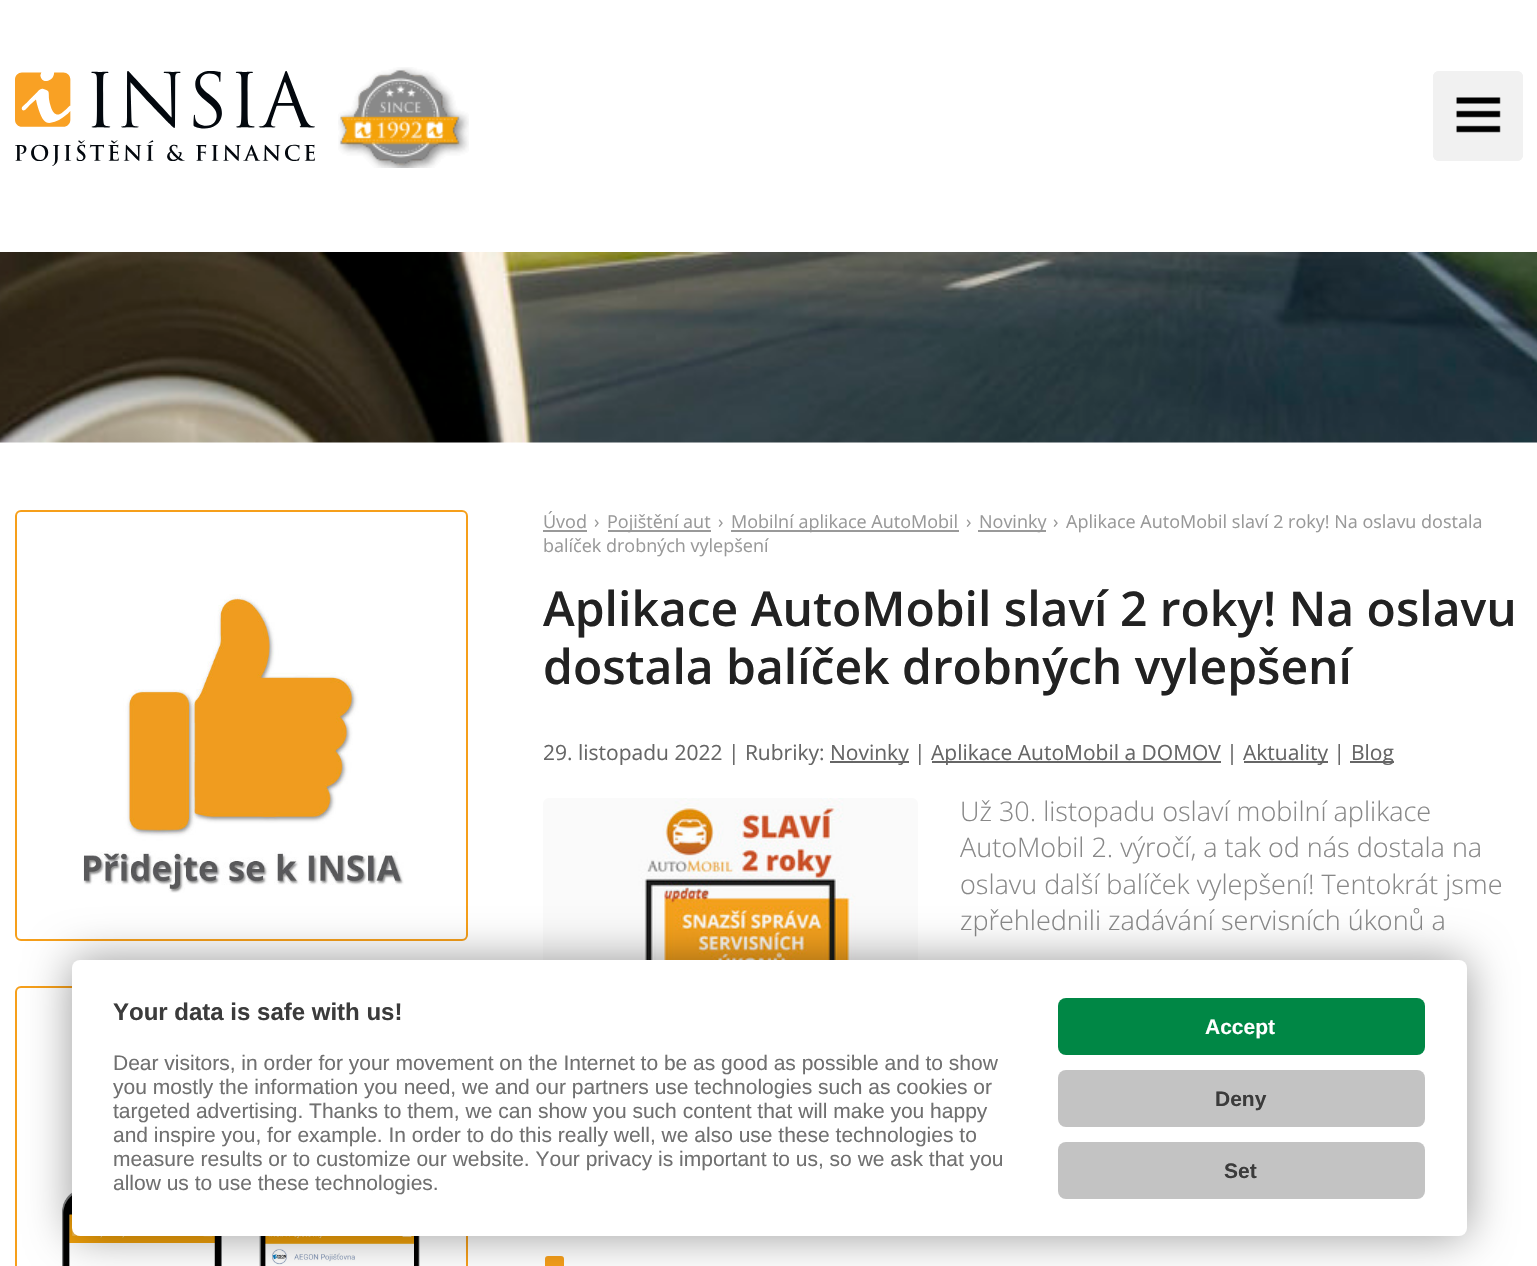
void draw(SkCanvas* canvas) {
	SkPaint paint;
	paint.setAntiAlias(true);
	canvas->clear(0xffffffff);
	canvas->drawImageRect(SkImages::DeferredFromEncodedData(SkData::MakeFromFileName("img1.png")), SkRect::MakeXYWH(15, 71, 300, 95), SkSamplingOptions());
	canvas->drawImageRect(SkImages::DeferredFromEncodedData(SkData::MakeFromFileName("img2.png")), SkRect::MakeXYWH(338, 67, 131, 101), SkSamplingOptions());
	paint.setColor(0xfff1f1f1);
	canvas->drawRoundRect(SkRect::MakeXYWH(1433, 71, 90, 90), 6, 6, paint);
	canvas->drawImageRect(SkImages::DeferredFromEncodedData(SkData::MakeFromFileName("img3.png")), SkRect::MakeXYWH(1456, 97, 45, 36), SkSamplingOptions());
	paint.setStroke(true);
	paint.setStrokeWidth(2);
	canvas->drawRoundRect(SkRect::MakeXYWH(1434, 72, 88, 88), 5, 5, paint);
	canvas->drawImageRect(SkImages::DeferredFromEncodedData(SkData::MakeFromFileName("img4.png")), SkRect::MakeXYWH(0, 252, 1537, 191), SkSamplingOptions());
	paint.setColor(0xfff69f1a);
	canvas->drawRoundRect(SkRect::MakeXYWH(16, 511, 451, 429), 5, 5, paint);
	canvas->drawImageRect(SkImages::DeferredFromEncodedData(SkData::MakeFromFileName("img5.png")), SkRect::MakeXYWH(83, 594, 321, 299), SkSamplingOptions());
	canvas->drawRoundRect(SkRect::MakeXYWH(16, 987, 451, 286), 5, 5, paint);
	canvas->drawImageRect(SkImages::DeferredFromEncodedData(SkData::MakeFromFileName("img6.png")), SkRect::MakeXYWH(62, 1192, 358, 74), SkSamplingOptions());
	SkFont f1(fontMgr->matchFamilyStyle("Open Sans", SkFontStyle::Normal()), 18);
	f1.setSubpixel(true);
	paint.setStroke(false);
	paint.setColor(0xff999999);
	canvas->drawString("Úvod", 543, 528, f1, paint);
	canvas->drawRect(SkRect::MakeXYWH(543, 530, 44, 2), paint);
	canvas->drawString("›", 594, 528, f1, paint);
	canvas->drawRect(SkRect::MakeXYWH(608, 530, 103, 2), paint);
	canvas->drawString("Pojištění aut", 607, 528, f1, paint);
	canvas->drawString("›", 718, 528, f1, paint);
	canvas->drawRect(SkRect::MakeXYWH(731, 530, 228, 2), paint);
	canvas->drawString("Mobilní aplikace AutoMobil", 731, 528, f1, paint);
	canvas->drawString("›", 966, 528, f1, paint);
	canvas->drawRect(SkRect::MakeXYWH(978, 530, 68, 2), paint);
	canvas->drawString("Novinky", 979, 528, f1, paint);
	canvas->drawString("›", 1053, 528, f1, paint);
	canvas->drawString("Aplikace AutoMobil slaví 2 roky! Na oslavu dostala", 1066, 528, f1, paint);
	canvas->drawString("balíček drobných vylepšení", 543, 552, f1, paint);
	SkFont f2(fontMgr->matchFamilyStyle("Open Sans", SkFontStyle(600, SkFontStyle::kNormal_Width, SkFontStyle::kUpright_Slant)), 48);
	f2.setSubpixel(true);
	paint.setColor(0xff222222);
	canvas->drawString("Aplikace AutoMobil slaví 2 roky! Na oslavu", 543, 626, f2, paint);
	canvas->drawString("dostala balíček drobných vylepšení", 543, 684, f2, paint);
	SkFont f3(fontMgr->matchFamilyStyle("Open Sans", SkFontStyle::Normal()), 21);
	f3.setSubpixel(true);
	paint.setColor(0xff666666);
	canvas->drawString("29. listopadu 2022 | Rubriky:", 543, 760, f3, paint);
	canvas->drawRect(SkRect::MakeXYWH(830, 761, 79, 2), paint);
	canvas->drawString("Novinky |", 830, 760, f3, paint);
	canvas->drawRect(SkRect::MakeXYWH(932, 761, 289, 2), paint);
	canvas->drawString("Aplikace AutoMobil a DOMOV |", 931, 760, f3, paint);
	canvas->drawRect(SkRect::MakeXYWH(1244, 761, 84, 2), paint);
	canvas->drawString("Aktuality |", 1243, 760, f3, paint);
	canvas->drawRect(SkRect::MakeXYWH(1350, 761, 44, 2), paint);
	canvas->drawString("Blog", 1351, 760, f3, paint);
	canvas->drawImageRect(SkImages::DeferredFromEncodedData(SkData::MakeFromFileName("img7.png")), SkRect::MakeXYWH(543, 798, 375, 162), SkSamplingOptions());
	SkFont f4(fontMgr->matchFamilyStyle("Open Sans", SkFontStyle(300, SkFontStyle::kNormal_Width, SkFontStyle::kUpright_Slant)), 27);
	f4.setSubpixel(true);
	paint.setColor(0xff888888);
	canvas->drawString("Už 30. listopadu oslaví mobilní aplikace", 960, 821, f4, paint);
	canvas->drawString("AutoMobil 2. výročí, a tak od nás dostala na", 960, 857, f4, paint);
	canvas->drawString("oslavu další balíček vylepšení! Tentokrát jsme", 960, 894, f4, paint);
	canvas->drawString("zpřehlednili zadávání servisních úkonů a", 960, 930, f4, paint);
	paint.setColor(0xfff69f1a);
	canvas->drawRoundRect(SkRect::MakeXYWH(545, 1256, 19, 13), 3, 3, paint);
	paint.setColor(0x66000000);
	paint.setMaskFilter(SkMaskFilter::MakeBlur(kNormal_SkBlurStyle, 22.5));
	canvas->drawRoundRect(SkRect::MakeXYWH(72, 960, 1395, 276), 8, 8, paint);
	paint.setMaskFilter(nullptr);
	paint.setColor(0xffffffff);
	canvas->drawRoundRect(SkRect::MakeXYWH(72, 960, 1395, 276), 8, 8, paint);
	SkFont f5(fontMgr->matchFamilyStyle("Liberation Sans", SkFontStyle::Bold()), 24);
	f5.setSubpixel(true);
	paint.setColor(0xff3b3b3b);
	canvas->drawString("Your data is safe with us!", 113, 1020, f5, paint);
	SkFont f6(fontMgr->matchFamilyStyle("Liberation Sans", SkFontStyle::Normal()), 21);
	f6.setSubpixel(true);
	paint.setColor(0xff707070);
	canvas->drawString("Dear visitors, in order for your movement on the Internet to be as good as possible and to show", 113, 1070, f6, paint);
	canvas->drawString("you mostly the information you need, we and our partners use technologies such as cookies or", 113, 1094, f6, paint);
	canvas->drawString("targeted advertising. Thanks to them, we can show you such content that will make you happy", 113, 1118, f6, paint);
	canvas->drawString("and inspire you, for example. In order to do this really well, we also use these technologies to", 113, 1142, f6, paint);
	canvas->drawString("measure results or to customize our website. Your privacy is important to us, so we ask that you", 113, 1166, f6, paint);
	canvas->drawString("allow us to use these technologies.", 113, 1190, f6, paint);
	paint.setColor(0xff008745);
	canvas->drawRoundRect(SkRect::MakeXYWH(1058, 998, 367, 57), 8, 8, paint);
	SkFont f7(fontMgr->matchFamilyStyle("Liberation Sans", SkFontStyle::Bold()), 21);
	f7.setSubpixel(true);
	paint.setColor(0xffffffff);
	canvas->drawString("Accept", 1205, 1034, f7, paint);
	paint.setColor(0xffc3c3c3);
	canvas->drawRoundRect(SkRect::MakeXYWH(1058, 1070, 367, 57), 8, 8, paint);
	paint.setColor(0xff3b3b3b);
	canvas->drawString("Deny", 1215, 1106, f7, paint);
	paint.setColor(0xffc3c3c3);
	canvas->drawRoundRect(SkRect::MakeXYWH(1058, 1142, 367, 57), 8, 8, paint);
	paint.setColor(0xff3b3b3b);
	canvas->drawString("Set", 1224, 1178, f7, paint);
}
